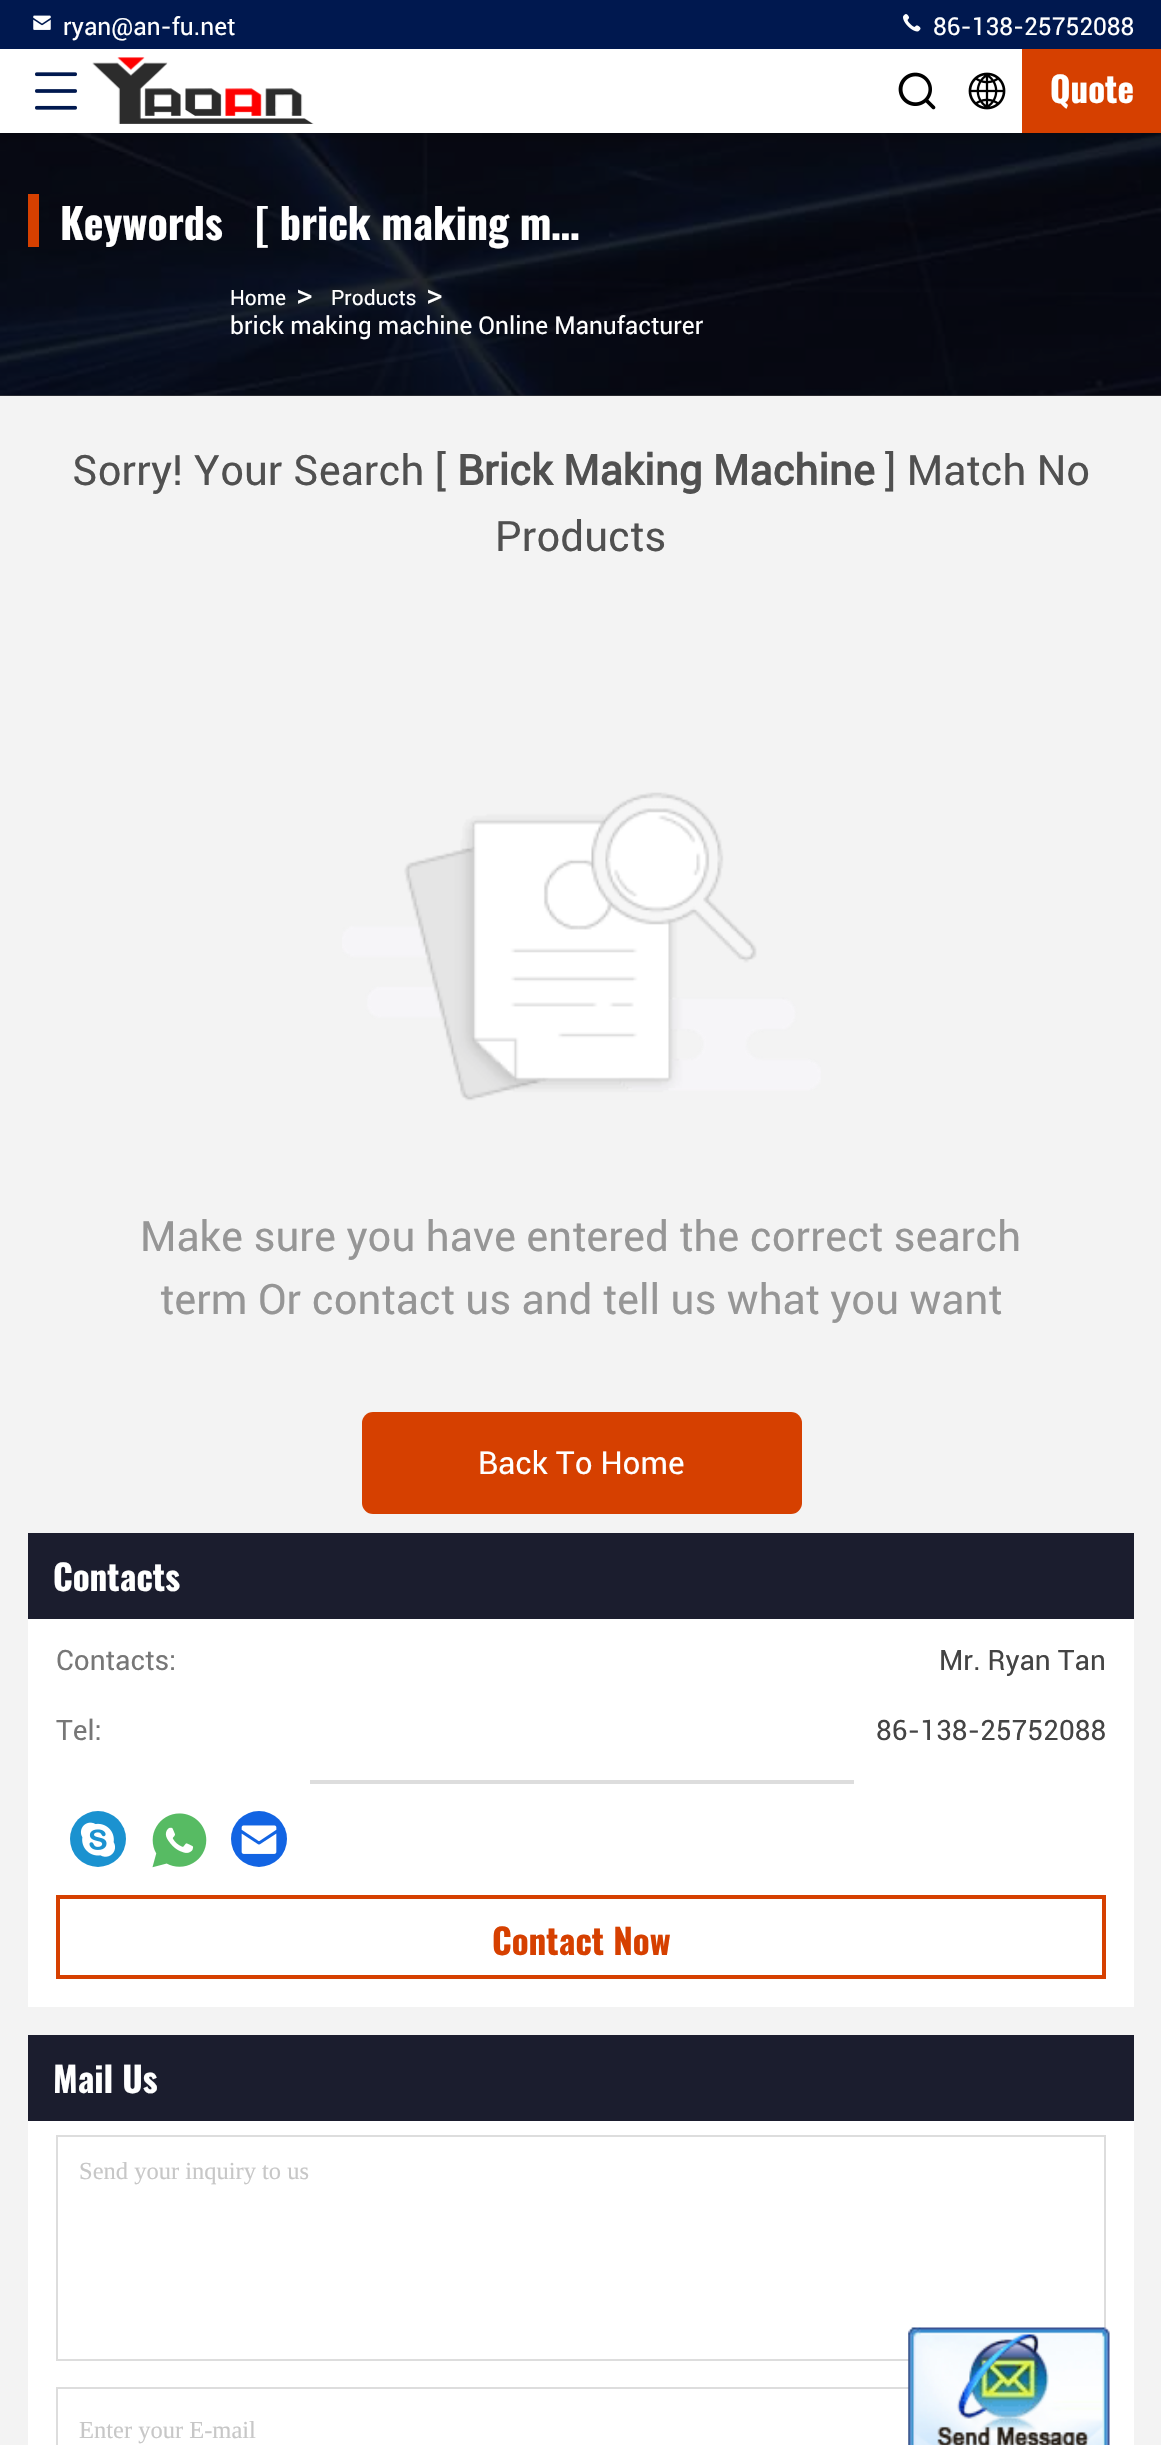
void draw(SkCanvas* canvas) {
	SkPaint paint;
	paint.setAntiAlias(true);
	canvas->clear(0xfff3f3f3);
	paint.setColor(0xff494949);
	canvas->drawRect(SkRect::MakeXYWH(0, 395, 1161, 1), paint);
	canvas->drawImageRect(SkImages::DeferredFromEncodedData(SkData::MakeFromFileName("img7.png")), SkRect::MakeXYWH(0, 133, 1161, 263), SkSamplingOptions());
	paint.setColor(0x26000000);
	paint.setMaskFilter(SkMaskFilter::MakeBlur(kNormal_SkBlurStyle, 5));
	canvas->drawRect(SkRect::MakeXYWH(0, 4, 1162, 133), paint);
	paint.setMaskFilter(nullptr);
	paint.setColor(0xff00184f);
	canvas->drawRect(SkRect::MakeXYWH(0, 0, 1161, 49), paint);
	canvas->drawImageRect(SkImages::DeferredFromEncodedData(SkData::MakeFromFileName("img1.png")), SkRect::MakeXYWH(33, 15, 18, 15), SkSamplingOptions());
	SkFont f1(fontMgr->matchFamilyStyle("Roboto", SkFontStyle::Normal()), 24.5);
	f1.setSubpixel(true);
	paint.setColor(0xffffffff);
	canvas->drawString("ryan@an-fu.net", 63, 35, f1, paint);
	canvas->drawImageRect(SkImages::DeferredFromEncodedData(SkData::MakeFromFileName("img2.png")), SkRect::MakeXYWH(903, 14, 18, 18), SkSamplingOptions());
	canvas->drawString("86-138-25752088", 933, 35, f1, paint);
	canvas->drawRect(SkRect::MakeXYWH(0, 49, 1022, 84), paint);
	canvas->drawImageRect(SkImages::DeferredFromEncodedData(SkData::MakeFromFileName("img3.png")), SkRect::MakeXYWH(35, 72, 42, 38), SkSamplingOptions());
	canvas->drawImageRect(SkImages::DeferredFromEncodedData(SkData::MakeFromFileName("img4.png")), SkRect::MakeXYWH(92, 57, 222, 67), SkSamplingOptions());
	canvas->drawImageRect(SkImages::DeferredFromEncodedData(SkData::MakeFromFileName("img5.png")), SkRect::MakeXYWH(898, 72, 38, 38), SkSamplingOptions());
	canvas->drawImageRect(SkImages::DeferredFromEncodedData(SkData::MakeFromFileName("img6.png")), SkRect::MakeXYWH(968, 72, 38, 38), SkSamplingOptions());
	paint.setColor(0xffd64000);
	canvas->drawRect(SkRect::MakeXYWH(1022, 49, 139, 84), paint);
	SkFont f2(fontMgr->matchFamilyStyle("Oswald", SkFontStyle::Bold()), 35);
	f2.setSubpixel(true);
	paint.setColor(0xffffffff);
	canvas->drawString("Quote", 1050, 103, f2, paint);
	paint.setColor(0xffd64000);
	canvas->drawRect(SkRect::MakeXYWH(28, 194, 11, 53), paint);
	SkFont f3(fontMgr->matchFamilyStyle("Oswald", SkFontStyle::Bold()), 42);
	f3.setSubpixel(true);
	paint.setColor(0xffffffff);
	canvas->drawString("Keywords   [ brick making m…", 60, 240, f3, paint);
	SkFont f4(fontMgr->matchFamilyStyle("Roboto", SkFontStyle::Normal()), 21);
	f4.setSubpixel(true);
	canvas->drawString("Home", 230, 305, f4, paint);
	SkFont f5(fontMgr->matchFamilyStyle("Roboto", SkFontStyle::Normal()), 31.5);
	f5.setSubpixel(true);
	canvas->drawString(">", 296, 305, f5, paint);
	canvas->drawString("Products", 331, 305, f4, paint);
	canvas->drawString(">", 426, 305, f5, paint);
	canvas->drawString("brick making machine Online Manufacturer", 230, 334, f1, paint);
	SkFont f6(fontMgr->matchFamilyStyle("Roboto", SkFontStyle::Normal()), 42);
	f6.setSubpixel(true);
	paint.setColor(0xff505050);
	canvas->drawString("Sorry! Your Search [", 72, 485, f6, paint);
	SkFont f7(fontMgr->matchFamilyStyle("Roboto", SkFontStyle::Bold()), 42);
	f7.setSubpixel(true);
	canvas->drawString("Brick Making Machine", 457, 485, f7, paint);
	canvas->drawString("] Match No", 885, 485, f6, paint);
	canvas->drawString("Products", 495, 551, f6, paint);
	canvas->drawImageRect(SkImages::DeferredFromEncodedData(SkData::MakeFromFileName("img8.png")), SkRect::MakeXYWH(342, 792, 479, 309), SkSamplingOptions());
	paint.setColor(0xff969696);
	canvas->drawString("Make sure you have entered the correct search", 140, 1251, f6, paint);
	canvas->drawString("term Or contact us and tell us what you want", 160, 1314, f6, paint);
	paint.setColor(0xffd64000);
	canvas->drawRoundRect(SkRect::MakeXYWH(362, 1412, 440, 102), 11, 11, paint);
	paint.setColor(0xffffffff);
	canvas->drawString("Back To Home", 478, 1474, f5, paint);
	paint.setColor(0xff1b1d2e);
	canvas->drawRect(SkRect::MakeXYWH(28, 1533, 1106, 86), paint);
	paint.setColor(0xffffffff);
	canvas->drawString("Contacts", 53, 1591, f2, paint);
	canvas->drawRect(SkRect::MakeXYWH(28, 1619, 1106, 388), paint);
	SkFont f8(fontMgr->matchFamilyStyle("Roboto", SkFontStyle::Normal()), 28);
	f8.setSubpixel(true);
	paint.setColor(0xff777777);
	canvas->drawString("Contacts:", 56, 1670, f8, paint);
	paint.setColor(0xff444444);
	canvas->drawString("Mr. Ryan Tan", 939, 1670, f8, paint);
	paint.setColor(0xff777777);
	canvas->drawString("Tel:", 56, 1740, f8, paint);
	paint.setColor(0xff444444);
	canvas->drawString("86-138-25752088", 876, 1740, f8, paint);
	paint.setColor(0xffdddddd);
	canvas->drawRect(SkRect::MakeXYWH(310, 1780, 544, 4), paint);
	paint.setColor(0xff1b92d0);
	canvas->drawCircle(98, 1839, 28, paint);
	canvas->drawImageRect(SkImages::DeferredFromEncodedData(SkData::MakeFromFileName("img9.png")), SkRect::MakeXYWH(80, 1822, 35, 35), SkSamplingOptions());
	canvas->drawImageRect(SkImages::DeferredFromEncodedData(SkData::MakeFromFileName("img10.png")), SkRect::MakeXYWH(152, 1813, 55, 55), SkSamplingOptions());
	paint.setColor(0xff1264e3);
	canvas->drawCircle(259, 1839, 28, paint);
	canvas->drawImageRect(SkImages::DeferredFromEncodedData(SkData::MakeFromFileName("img11.png")), SkRect::MakeXYWH(241, 1825, 36, 29), SkSamplingOptions());
	paint.setStroke(true);
	paint.setStrokeWidth(4);
	paint.setColor(0xffd64000);
	canvas->drawRect(SkRect::MakeXYWH(58, 1897, 1046, 80), paint);
	paint.setStroke(false);
	canvas->drawString("Contact Now", 492, 1955, f2, paint);
	paint.setColor(0xff1b1d2e);
	canvas->drawRect(SkRect::MakeXYWH(28, 2035, 1106, 86), paint);
	paint.setColor(0xffffffff);
	canvas->drawString("Mail Us", 53, 2093, f2, paint);
	canvas->drawRect(SkRect::MakeXYWH(28, 2121, 1106, 324), paint);
	paint.setStroke(true);
	paint.setStrokeWidth(2);
	paint.setColor(0xffdddddd);
	canvas->drawRect(SkRect::MakeXYWH(57, 2136, 1048, 224), paint);
	SkFont f9(fontMgr->matchFamilyStyle("Liberation Serif", SkFontStyle::Normal()), 24.5);
	f9.setSubpixel(true);
	paint.setStroke(false);
	paint.setColor(0xffc7c7c7);
	canvas->drawString("Send your inquiry to us", 79, 2179, f9, paint);
	paint.setStroke(true);
	paint.setColor(0xffdddddd);
	canvas->drawRect(SkRect::MakeXYWH(57, 2388, 1048, 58), paint);
	paint.setStroke(false);
	paint.setColor(0xffc7c7c7);
	canvas->drawString("Enter your E-mail", 79, 2438, f9, paint);
	canvas->drawImageRect(SkImages::DeferredFromEncodedData(SkData::MakeFromFileName("img12.png")), SkRect::MakeXYWH(908, 2327, 202, 118), SkSamplingOptions());
}
